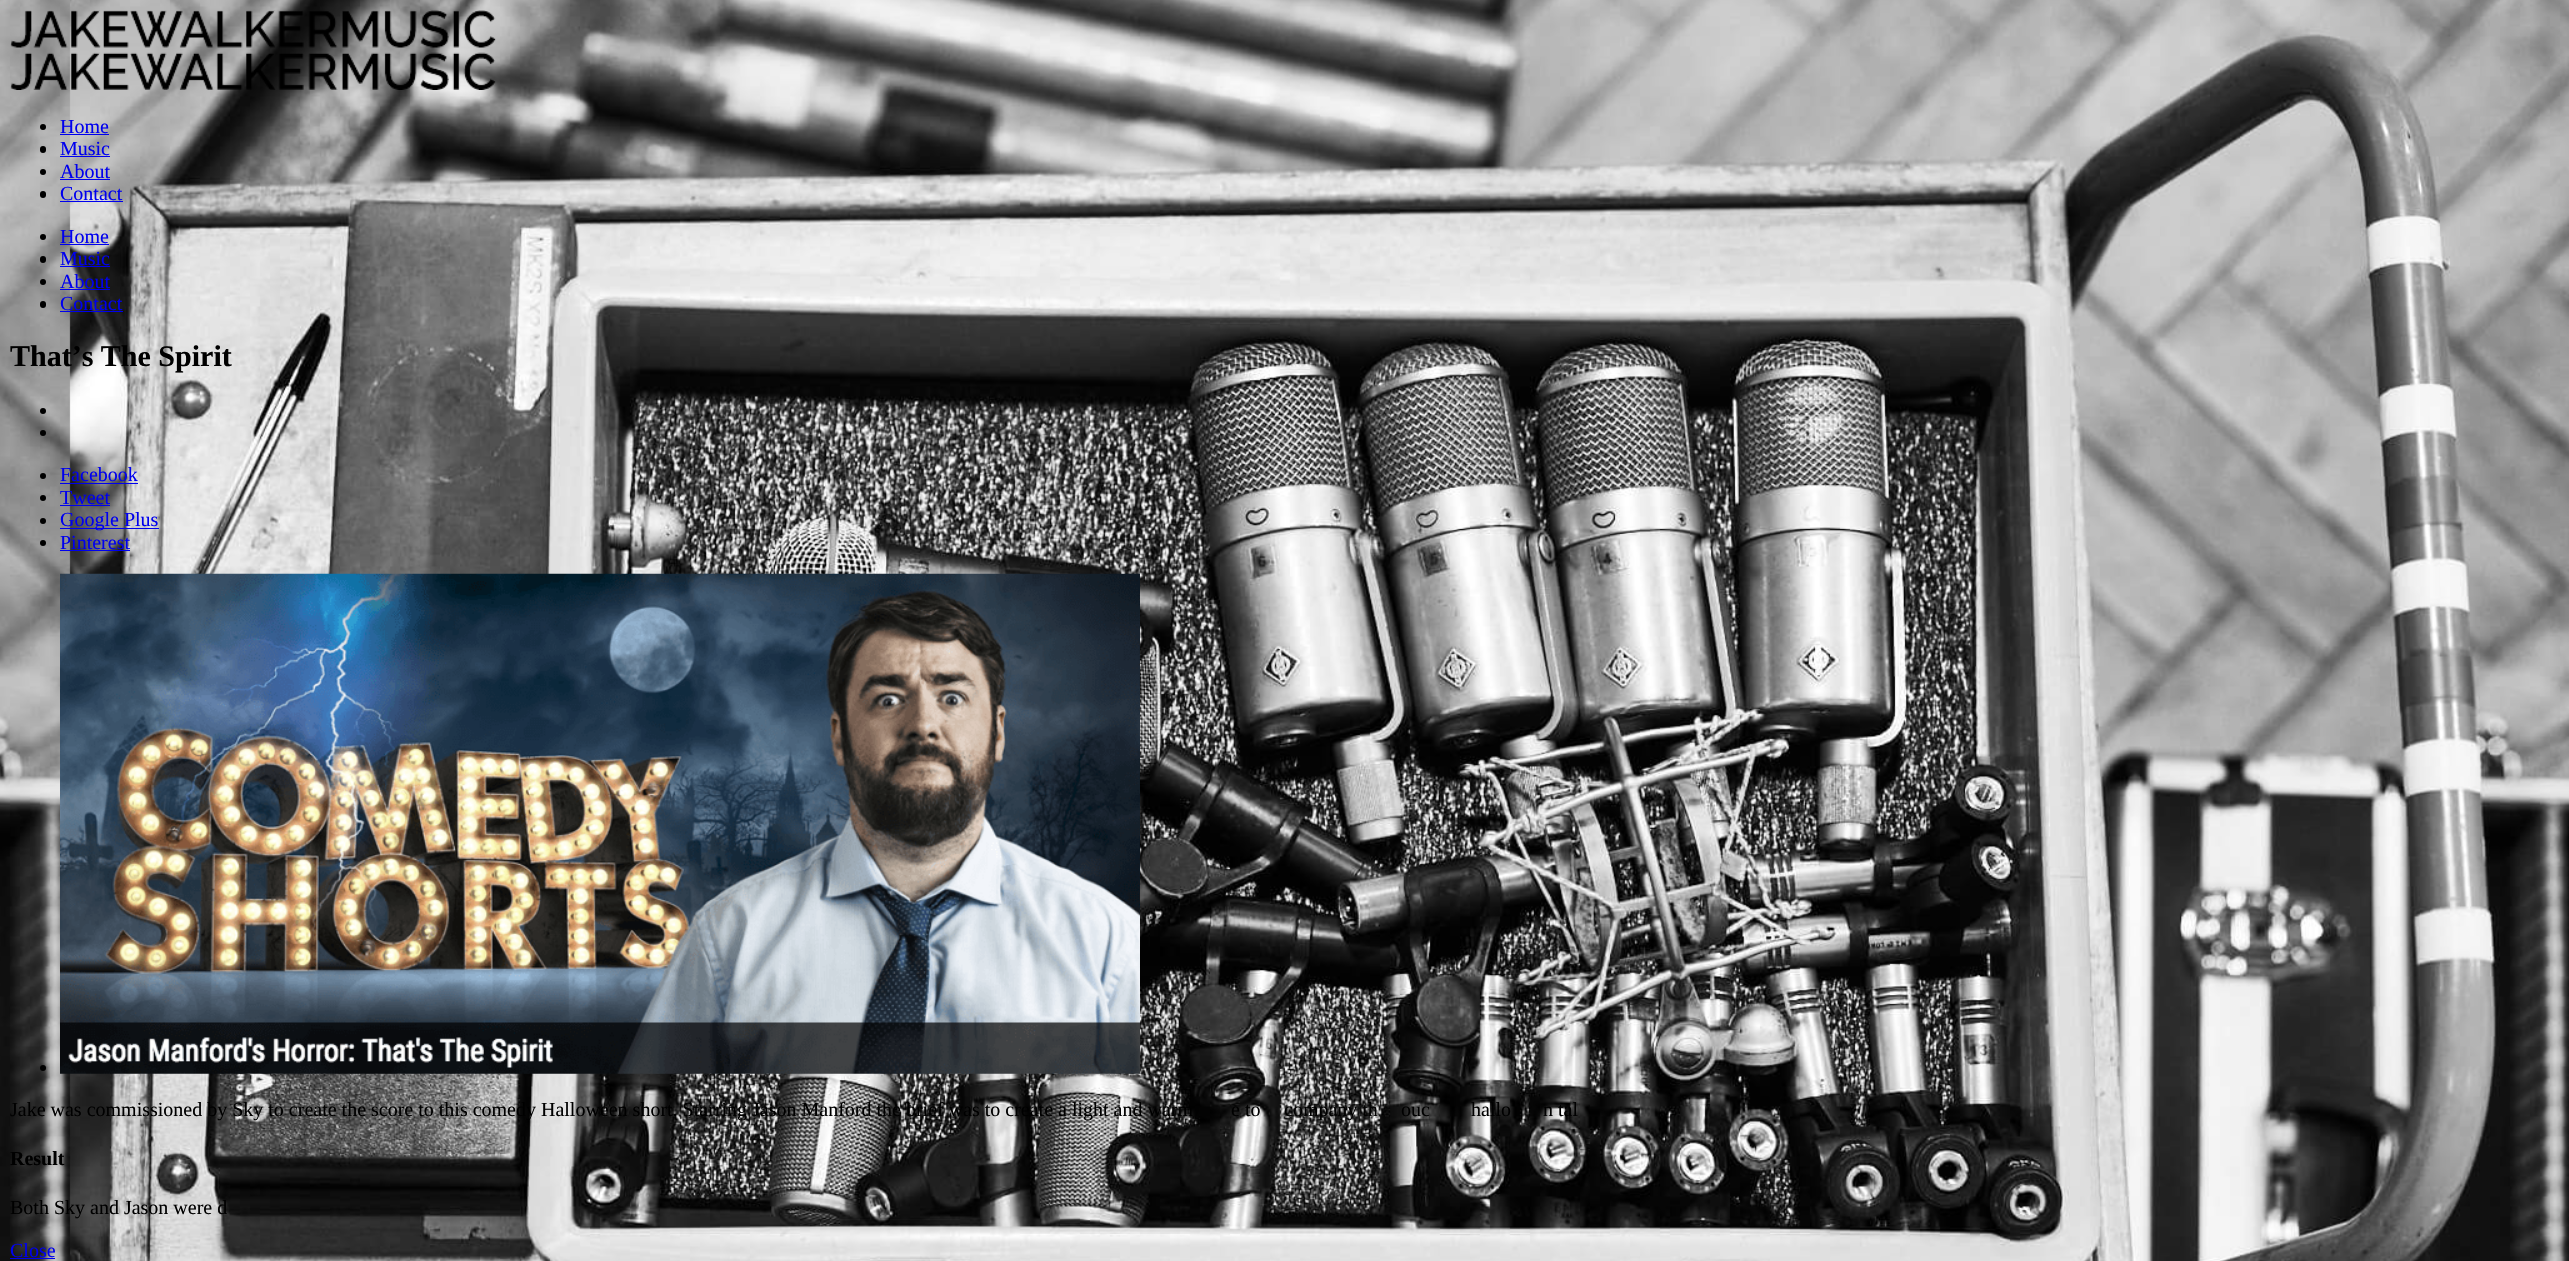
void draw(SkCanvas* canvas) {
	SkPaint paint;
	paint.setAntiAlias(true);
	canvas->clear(0xffffffff);
	canvas->drawImageRect(SkImages::DeferredFromEncodedData(SkData::MakeFromFileName("img1.png")), SkRect::MakeXYWH(0, 0, 2569, 1261), SkSamplingOptions());
	canvas->drawImageRect(SkImages::DeferredFromEncodedData(SkData::MakeFromFileName("img2.png")), SkRect::MakeXYWH(10, 10, 486, 38), SkSamplingOptions());
	canvas->drawImageRect(SkImages::DeferredFromEncodedData(SkData::MakeFromFileName("img3.png")), SkRect::MakeXYWH(10, 52, 486, 38), SkSamplingOptions());
	paint.setColor(0xff000000);
	canvas->drawCircle(43, 127, 3, paint);
	SkFont f1(fontMgr->matchFamilyStyle("Liberation Serif", SkFontStyle::Normal()), 20);
	f1.setSubpixel(true);
	paint.setColor(0xff0000ee);
	canvas->drawString("Home", 60, 133, f1, paint);
	canvas->drawRect(SkRect::MakeXYWH(60, 134, 49, 1), paint);
	paint.setColor(0xff000000);
	canvas->drawRoundRect(SkRect::MakeXYWH(40, 146, 6, 7), 3, 3, paint);
	paint.setColor(0xff0000ee);
	canvas->drawString("Music", 60, 155, f1, paint);
	canvas->drawRect(SkRect::MakeXYWH(60, 156, 50, 1), paint);
	paint.setColor(0xff000000);
	canvas->drawCircle(43, 172, 3, paint);
	paint.setColor(0xff0000ee);
	canvas->drawString("About", 60, 178, f1, paint);
	canvas->drawRect(SkRect::MakeXYWH(60, 179, 50, 1), paint);
	paint.setColor(0xff000000);
	canvas->drawRoundRect(SkRect::MakeXYWH(40, 191, 6, 7), 3, 3, paint);
	paint.setColor(0xff0000ee);
	canvas->drawString("Contact", 60, 200, f1, paint);
	canvas->drawRect(SkRect::MakeXYWH(60, 201, 63, 1), paint);
	paint.setColor(0xff000000);
	canvas->drawCircle(43, 237, 3, paint);
	paint.setColor(0xff0000ee);
	canvas->drawString("Home", 60, 243, f1, paint);
	canvas->drawRect(SkRect::MakeXYWH(60, 244, 49, 1), paint);
	paint.setColor(0xff000000);
	canvas->drawRoundRect(SkRect::MakeXYWH(40, 256, 6, 7), 3, 3, paint);
	paint.setColor(0xff0000ee);
	canvas->drawString("Music", 60, 265, f1, paint);
	canvas->drawRect(SkRect::MakeXYWH(60, 266, 50, 1), paint);
	paint.setColor(0xff000000);
	canvas->drawCircle(43, 282, 3, paint);
	paint.setColor(0xff0000ee);
	canvas->drawString("About", 60, 288, f1, paint);
	canvas->drawRect(SkRect::MakeXYWH(60, 289, 50, 1), paint);
	paint.setColor(0xff000000);
	canvas->drawRoundRect(SkRect::MakeXYWH(40, 301, 6, 7), 3, 3, paint);
	paint.setColor(0xff0000ee);
	canvas->drawString("Contact", 60, 310, f1, paint);
	canvas->drawRect(SkRect::MakeXYWH(60, 311, 63, 1), paint);
	SkFont f2(fontMgr->matchFamilyStyle("Liberation Serif", SkFontStyle::Bold()), 30);
	f2.setSubpixel(true);
	paint.setColor(0xff000000);
	canvas->drawString("That’s The Spirit", 10, 366, f2, paint);
	canvas->drawCircle(43, 411, 3, paint);
	canvas->drawCircle(43, 433, 3, paint);
	canvas->drawCircle(43, 476, 3, paint);
	paint.setColor(0xff0000ee);
	canvas->drawString("Facebook", 60, 481, f1, paint);
	canvas->drawRect(SkRect::MakeXYWH(60, 483, 78, 1), paint);
	paint.setColor(0xff000000);
	canvas->drawCircle(43, 498, 3, paint);
	paint.setColor(0xff0000ee);
	canvas->drawString("Tweet", 60, 504, f1, paint);
	canvas->drawRect(SkRect::MakeXYWH(60, 505, 50, 1), paint);
	paint.setColor(0xff000000);
	canvas->drawCircle(43, 521, 3, paint);
	paint.setColor(0xff0000ee);
	canvas->drawRect(SkRect::MakeXYWH(60, 528, 99, 1), paint);
	canvas->drawString("Google Plus", 60, 526, f1, paint);
	paint.setColor(0xff000000);
	canvas->drawCircle(43, 543, 3, paint);
	paint.setColor(0xff0000ee);
	canvas->drawString("Pinterest", 60, 549, f1, paint);
	canvas->drawRect(SkRect::MakeXYWH(60, 550, 70, 1), paint);
	paint.setColor(0xff000000);
	canvas->drawCircle(43, 1068, 3, paint);
	canvas->drawImageRect(SkImages::DeferredFromEncodedData(SkData::MakeFromFileName("img4.png")), SkRect::MakeXYWH(60, 573, 1080, 501), SkSamplingOptions());
	canvas->drawString("Jake was commissioned by Sky to create the score to this comedy Halloween short. Starring Jason Manford the brief was to create a light and warm", 10, 1116, f1, paint);
	canvas->drawString("e to", 1231, 1116, f1, paint);
	canvas->drawString("company th", 1284, 1116, f1, paint);
	canvas->drawString("ouc", 1401, 1116, f1, paint);
	canvas->drawString("hallo", 1471, 1116, f1, paint);
	canvas->drawString("n tal", 1543, 1116, f1, paint);
	SkFont f3(fontMgr->matchFamilyStyle("Liberation Serif", SkFontStyle::Bold()), 20);
	f3.setSubpixel(true);
	canvas->drawString("Result", 10, 1165, f3, paint);
	canvas->drawString("Both Sky and Jason were d", 10, 1214, f1, paint);
	paint.setColor(0xff0000ee);
	canvas->drawString("Close", 10, 1257, f1, paint);
	canvas->drawRect(SkRect::MakeXYWH(10, 1258, 45, 1), paint);
}
